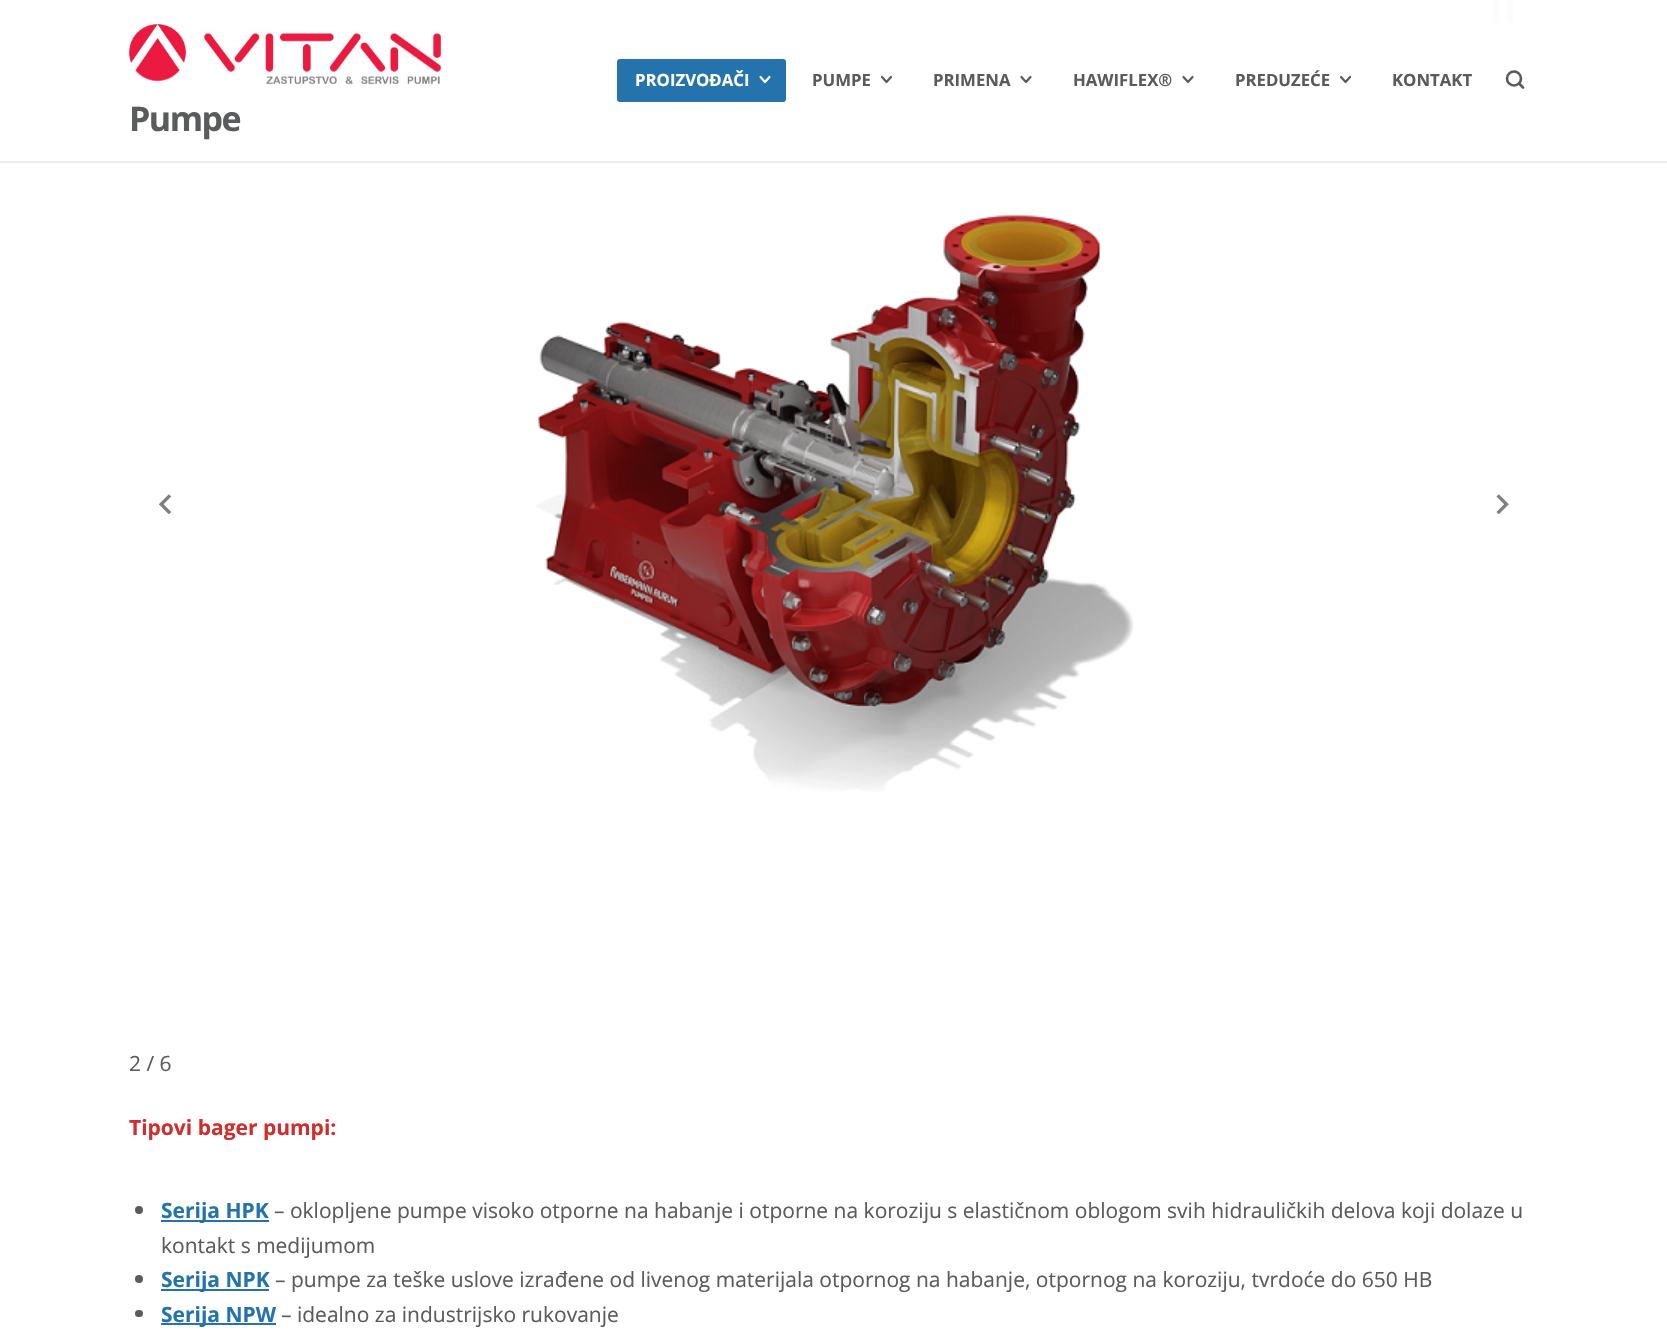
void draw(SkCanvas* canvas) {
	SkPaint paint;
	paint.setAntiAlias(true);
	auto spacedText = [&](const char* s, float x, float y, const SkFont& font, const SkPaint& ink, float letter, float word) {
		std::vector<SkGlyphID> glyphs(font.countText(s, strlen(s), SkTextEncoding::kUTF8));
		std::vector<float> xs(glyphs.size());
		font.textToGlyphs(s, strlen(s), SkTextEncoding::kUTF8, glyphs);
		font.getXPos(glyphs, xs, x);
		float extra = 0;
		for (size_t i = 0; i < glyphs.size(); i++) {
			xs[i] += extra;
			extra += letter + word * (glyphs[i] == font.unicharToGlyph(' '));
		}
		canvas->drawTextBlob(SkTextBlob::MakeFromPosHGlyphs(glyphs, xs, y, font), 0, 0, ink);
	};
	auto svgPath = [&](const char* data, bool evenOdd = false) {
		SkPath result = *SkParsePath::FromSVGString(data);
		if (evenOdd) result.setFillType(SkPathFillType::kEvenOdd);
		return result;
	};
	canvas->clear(0xffffffff);
	paint.setColor(0xffebecee);
	canvas->drawRect(SkRect::MakeXYWH(0, 161, 1667, 2), paint);
	paint.setColor(0xff2473ac);
	canvas->drawRoundRect(SkRect::MakeXYWH(617, 59, 169, 43), 3, 3, paint);
	SkFont f1(fontMgr->matchFamilyStyle("Open Sans", SkFontStyle::Bold()), 16.75);
	f1.setSubpixel(true);
	paint.setColor(0xffffffff);
	canvas->drawString("PROIZVOĐAČI", 635, 86, f1, paint);
	paint.setStroke(true);
	paint.setStrokeWidth(2.2);
	paint.setStrokeCap(SkPaint::kRound_Cap);
	paint.setStrokeJoin(SkPaint::kRound_Join);
	canvas->drawPath(svgPath("M760.5 77L765 82L769.5 77"), paint);
	paint.setStroke(false);
	paint.setColor(0xff5a5b5c);
	canvas->drawString("PUMPE", 812, 86, f1, paint);
	paint.setStroke(true);
	canvas->drawPath(svgPath("M882 77L886.5 82L891 77"), paint);
	paint.setStroke(false);
	canvas->drawString("PRIMENA", 933, 86, f1, paint);
	paint.setStroke(true);
	canvas->drawPath(svgPath("M1021.5 77L1026 82L1030.5 77"), paint);
	paint.setStroke(false);
	canvas->drawString("HAWIFLEX®", 1073, 86, f1, paint);
	paint.setStroke(true);
	canvas->drawPath(svgPath("M1183.5 77L1188 82L1192.5 77"), paint);
	paint.setStroke(false);
	canvas->drawString("PREDUZEĆE", 1235, 86, f1, paint);
	paint.setStroke(true);
	canvas->drawPath(svgPath("M1341 77L1345.5 82L1350 77"), paint);
	paint.setStroke(false);
	canvas->drawString("KONTAKT", 1392, 86, f1, paint);
	paint.setStroke(true);
	paint.setStrokeWidth(2.6);
	paint.setStrokeCap(SkPaint::kButt_Cap);
	paint.setStrokeJoin(SkPaint::kMiter_Join);
	canvas->drawCircle(1514, 78.5, 7, paint);
	paint.setStrokeCap(SkPaint::kRound_Cap);
	paint.setStrokeJoin(SkPaint::kRound_Join);
	canvas->drawPath(svgPath("M1523 87.5L1519 83.5"), paint);
	canvas->drawImageRect(SkImages::DeferredFromEncodedData(SkData::MakeFromFileName("img1.png")), SkRect::MakeXYWH(129, 24, 312, 60), SkSamplingOptions());
	SkFont f2(fontMgr->matchFamilyStyle("Open Sans", SkFontStyle::Bold()), 34);
	f2.setSubpixel(true);
	paint.setStroke(false);
	spacedText("Pumpe", 129, 131, f2, paint, -1.5, 0);
	canvas->drawImageRect(SkImages::DeferredFromEncodedData(SkData::MakeFromFileName("img2.png")), SkRect::MakeXYWH(1492, 0, 22, 23), SkSamplingOptions());
	canvas->drawImageRect(SkImages::DeferredFromEncodedData(SkData::MakeFromFileName("img3.png")), SkRect::MakeXYWH(159, 494, 12, 20), SkSamplingOptions());
	canvas->drawImageRect(SkImages::DeferredFromEncodedData(SkData::MakeFromFileName("img4.png")), SkRect::MakeXYWH(536, 214, 598, 578), SkSamplingOptions());
	canvas->drawImageRect(SkImages::DeferredFromEncodedData(SkData::MakeFromFileName("img5.png")), SkRect::MakeXYWH(1496, 494, 13, 20), SkSamplingOptions());
	SkFont f3(fontMgr->matchFamilyStyle("Open Sans", SkFontStyle::Normal()), 21);
	f3.setSubpixel(true);
	canvas->drawString("2 / 6", 129, 1071, f3, paint);
	SkFont f4(fontMgr->matchFamilyStyle("Open Sans", SkFontStyle::Bold()), 21);
	f4.setSubpixel(true);
	paint.setColor(0xffcf2e2e);
	canvas->drawString("Tipovi bager pumpi:", 129, 1135, f4, paint);
	paint.setColor(0xff5a5b5c);
	canvas->drawCircle(139, 1210, 4, paint);
	paint.setColor(0xff2473ac);
	canvas->drawRect(SkRect::MakeXYWH(161, 1220, 108, 2), paint);
	canvas->drawString("Serija HPK", 161, 1218, f4, paint);
	paint.setColor(0xff5a5b5c);
	canvas->drawString("– oklopljene pumpe visoko otporne na habanje i otporne na koroziju s elastičnom oblogom svih hidrauličkih delova koji dolaze u", 274, 1218, f3, paint);
	canvas->drawString("kontakt s medijumom", 161, 1253, f3, paint);
	canvas->drawCircle(139, 1279, 4, paint);
	paint.setColor(0xff2473ac);
	canvas->drawRect(SkRect::MakeXYWH(161, 1289, 108, 2), paint);
	canvas->drawString("Serija NPK", 161, 1287, f4, paint);
	paint.setColor(0xff5a5b5c);
	canvas->drawString("– pumpe za teške uslove izrađene od livenog materijala otpornog na habanje, otpornog na koroziju, tvrdoće do 650 HB", 275, 1287, f3, paint);
	canvas->drawRoundRect(SkRect::MakeXYWH(135, 1310, 8, 7), 3.5, 3.5, paint);
	paint.setColor(0xff2473ac);
	canvas->drawRect(SkRect::MakeXYWH(161, 1323, 115, 2), paint);
	canvas->drawString("Serija NPW", 161, 1322, f4, paint);
	paint.setColor(0xff5a5b5c);
	canvas->drawString("– idealno za industrijsko rukovanje", 281, 1322, f3, paint);
}
